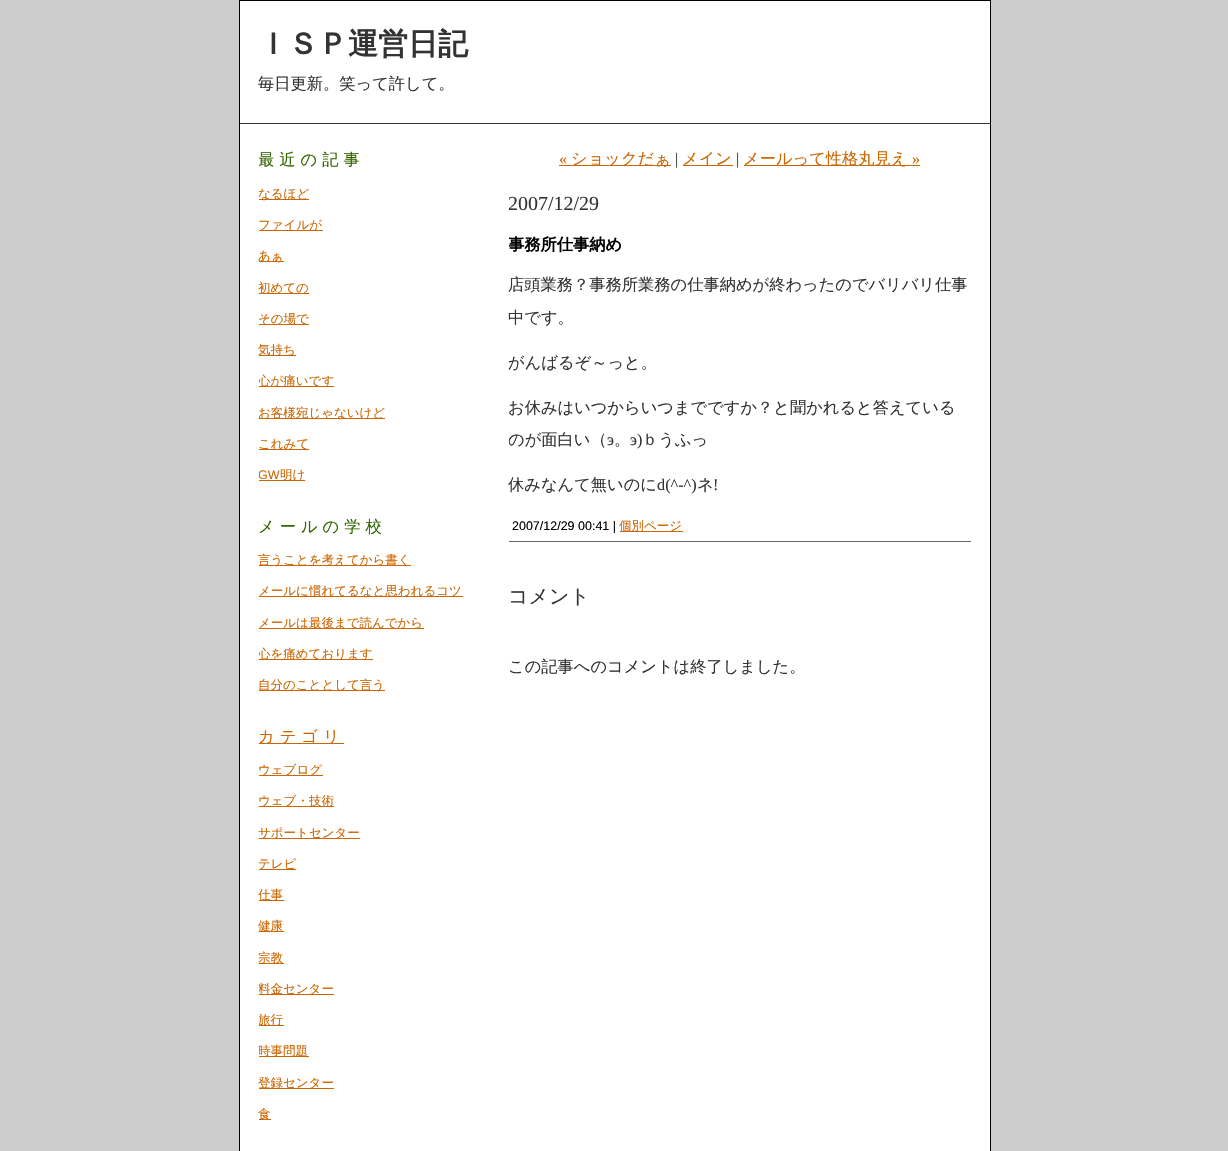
void draw(SkCanvas* canvas) {
	SkPaint paint;
	paint.setAntiAlias(true);
	auto spacedText = [&](const char* s, float x, float y, const SkFont& font, const SkPaint& ink, float letter, float word) {
		std::vector<SkGlyphID> glyphs(font.countText(s, strlen(s), SkTextEncoding::kUTF8));
		std::vector<float> xs(glyphs.size());
		font.textToGlyphs(s, strlen(s), SkTextEncoding::kUTF8, glyphs);
		font.getXPos(glyphs, xs, x);
		float extra = 0;
		for (size_t i = 0; i < glyphs.size(); i++) {
			xs[i] += extra;
			extra += letter + word * (glyphs[i] == font.unicharToGlyph(' '));
		}
		canvas->drawTextBlob(SkTextBlob::MakeFromPosHGlyphs(glyphs, xs, y, font), 0, 0, ink);
	};
	canvas->clear(0xffcccccc);
	paint.setColor(0xffffffff);
	canvas->drawRect(SkRect::MakeXYWH(239.5, 0.5, 751, 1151), paint);
	paint.setStroke(true);
	paint.setStrokeWidth(1);
	paint.setColor(0xff000000);
	canvas->drawRect(SkRect::MakeXYWH(239.5, 0.5, 751, 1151), paint);
	paint.setStroke(false);
	paint.setColor(0xff333333);
	canvas->drawRect(SkRect::MakeXYWH(240, 123, 750, 1), paint);
	SkFont f1(fontMgr->matchFamilyStyle("WenQuanYi Zen Hei", SkFontStyle::Bold()), 30);
	f1.setSubpixel(true);
	canvas->drawString("ＩＳＰ運営日記", 258, 54, f1, paint);
	SkFont f2(fontMgr->matchFamilyStyle("WenQuanYi Zen Hei", SkFontStyle(500, SkFontStyle::kNormal_Width, SkFontStyle::kUpright_Slant)), 16.25);
	f2.setSubpixel(true);
	canvas->drawString("毎日更新。笑って許して。", 258, 89, f2, paint);
	canvas->save();
	canvas->clipRect(SkRect::MakeXYWH(259, 143, 212, 366));
	paint.setColor(0xff336600);
	spacedText("最近の記事", 258, 165, f2, paint, 5, 0);
	canvas->restore();
	paint.setColor(0xffcc6600);
	canvas->drawRect(SkRect::MakeXYWH(259, 199, 50, 1), paint);
	SkFont f3(fontMgr->matchFamilyStyle("WenQuanYi Zen Hei", SkFontStyle(500, SkFontStyle::kNormal_Width, SkFontStyle::kUpright_Slant)), 12.5);
	f3.setSubpixel(true);
	canvas->drawString("なるほど", 258, 198, f3, paint);
	canvas->drawRect(SkRect::MakeXYWH(259, 230, 64, 1), paint);
	canvas->drawString("ファイルが", 258, 229, f3, paint);
	canvas->drawRect(SkRect::MakeXYWH(259, 261, 25, 1), paint);
	canvas->drawString("あぁ", 258, 260, f3, paint);
	canvas->drawRect(SkRect::MakeXYWH(259, 293, 50, 1), paint);
	canvas->drawString("初めての", 258, 292, f3, paint);
	canvas->drawRect(SkRect::MakeXYWH(259, 324, 50, 1), paint);
	canvas->drawString("その場で", 258, 323, f3, paint);
	canvas->drawRect(SkRect::MakeXYWH(259, 355, 37, 1), paint);
	canvas->drawString("気持ち", 258, 354, f3, paint);
	canvas->drawRect(SkRect::MakeXYWH(259, 386, 75, 1), paint);
	canvas->save();
	canvas->clipRect(SkRect::MakeXYWH(259, 143, 212, 366));
	canvas->drawString("心が痛いです", 258, 385, f3, paint);
	canvas->restore();
	canvas->drawRect(SkRect::MakeXYWH(259, 418, 126, 1), paint);
	canvas->drawString("お客様宛じゃないけど", 258, 417, f3, paint);
	canvas->drawRect(SkRect::MakeXYWH(259, 449, 50, 1), paint);
	canvas->drawString("これみて", 258, 448, f3, paint);
	canvas->save();
	canvas->clipRect(SkRect::MakeXYWH(259, 143, 212, 366));
	SkFont f4(fontMgr->matchFamilyStyle("Liberation Sans", SkFontStyle::Normal()), 12.5);
	f4.setSubpixel(true);
	canvas->drawString("GW", 258, 479, f4, paint);
	canvas->restore();
	canvas->drawRect(SkRect::MakeXYWH(259, 480, 46, 1), paint);
	canvas->drawString("明け", 280, 479, f3, paint);
	paint.setColor(0xff336600);
	spacedText("メールの学校", 258, 532, f2, paint, 5, 0);
	paint.setColor(0xffcc6600);
	canvas->drawRect(SkRect::MakeXYWH(259, 565, 152, 1), paint);
	canvas->drawString("言うことを考えてから書く", 258, 564, f3, paint);
	canvas->drawRect(SkRect::MakeXYWH(259, 596, 204, 1), paint);
	canvas->drawString("メールに慣れてるなと思われるコツ", 258, 595, f3, paint);
	canvas->drawRect(SkRect::MakeXYWH(259, 628, 165, 1), paint);
	canvas->drawString("メールは最後まで読んでから", 258, 627, f3, paint);
	canvas->drawRect(SkRect::MakeXYWH(259, 659, 114, 1), paint);
	canvas->save();
	canvas->clipRect(SkRect::MakeXYWH(259, 509, 212, 210));
	canvas->drawString("心を痛めております", 258, 658, f3, paint);
	canvas->restore();
	canvas->drawRect(SkRect::MakeXYWH(259, 690, 126, 1), paint);
	canvas->drawString("自分のこととして言う", 258, 689, f3, paint);
	canvas->drawRect(SkRect::MakeXYWH(259, 743, 85, 1), paint);
	spacedText("カテゴリ", 258, 742, f2, paint, 5, 0);
	canvas->drawRect(SkRect::MakeXYWH(259, 775, 64, 1), paint);
	canvas->drawString("ウェブログ", 258, 774, f3, paint);
	canvas->drawRect(SkRect::MakeXYWH(259, 806, 75, 1), paint);
	canvas->drawString("ウェブ・技術", 258, 805, f3, paint);
	canvas->drawRect(SkRect::MakeXYWH(259, 838, 101, 1), paint);
	canvas->drawString("サポートセンター", 258, 837, f3, paint);
	canvas->drawRect(SkRect::MakeXYWH(259, 869, 37, 1), paint);
	canvas->drawString("テレビ", 258, 868, f3, paint);
	canvas->drawRect(SkRect::MakeXYWH(259, 900, 25, 1), paint);
	canvas->drawString("仕事", 258, 899, f3, paint);
	canvas->drawRect(SkRect::MakeXYWH(259, 931, 25, 1), paint);
	canvas->drawString("健康", 258, 930, f3, paint);
	canvas->drawRect(SkRect::MakeXYWH(259, 963, 25, 1), paint);
	canvas->drawString("宗教", 258, 962, f3, paint);
	canvas->drawRect(SkRect::MakeXYWH(259, 994, 75, 1), paint);
	canvas->save();
	canvas->clipRect(SkRect::MakeXYWH(259, 719, 212, 429));
	canvas->drawString("料金センター", 258, 993, f3, paint);
	canvas->restore();
	canvas->drawRect(SkRect::MakeXYWH(259, 1025, 25, 1), paint);
	canvas->save();
	canvas->clipRect(SkRect::MakeXYWH(259, 719, 212, 429));
	canvas->drawString("旅行", 258, 1024, f3, paint);
	canvas->restore();
	canvas->drawRect(SkRect::MakeXYWH(259, 1056, 50, 1), paint);
	canvas->save();
	canvas->clipRect(SkRect::MakeXYWH(259, 719, 212, 429));
	canvas->drawString("時事問題", 258, 1055, f3, paint);
	canvas->restore();
	canvas->drawRect(SkRect::MakeXYWH(259, 1088, 75, 1), paint);
	canvas->drawString("登録センター", 258, 1087, f3, paint);
	canvas->drawRect(SkRect::MakeXYWH(259, 1119, 12, 1), paint);
	canvas->drawString("食", 258, 1118, f3, paint);
	SkFont f5(fontMgr->matchFamilyStyle("Liberation Serif", SkFontStyle::Normal()), 16.25);
	f5.setSubpixel(true);
	canvas->drawString("«", 559, 164, f5, paint);
	canvas->drawRect(SkRect::MakeXYWH(559, 165, 112, 1), paint);
	canvas->drawString("ショックだぁ", 571, 164, f2, paint);
	paint.setColor(0xff333333);
	canvas->drawString("|", 675, 164, f5, paint);
	paint.setColor(0xffcc6600);
	canvas->drawRect(SkRect::MakeXYWH(683, 165, 50, 1), paint);
	canvas->drawString("メイン", 682, 164, f2, paint);
	paint.setColor(0xff333333);
	canvas->drawString("|", 736, 164, f5, paint);
	paint.setColor(0xffcc6600);
	canvas->drawRect(SkRect::MakeXYWH(744, 165, 176, 1), paint);
	canvas->drawString("メールって性格丸見え", 743, 164, f2, paint);
	canvas->drawString("»", 912, 164, f5, paint);
	SkFont f6(fontMgr->matchFamilyStyle("Liberation Serif", SkFontStyle::Normal()), 20);
	f6.setSubpixel(true);
	paint.setColor(0xff333333);
	canvas->drawString("2007/12/29", 508, 210, f6, paint);
	canvas->save();
	canvas->clipRect(SkRect::MakeXYWH(509, 233, 462, 322));
	SkFont f7(fontMgr->matchFamilyStyle("WenQuanYi Zen Hei", SkFontStyle::Bold()), 16.25);
	f7.setSubpixel(true);
	paint.setColor(0xff000000);
	canvas->drawString("事務所仕事納め", 508, 250, f7, paint);
	canvas->restore();
	paint.setColor(0xff333333);
	canvas->drawString("店頭業務？事務所業務の仕事納めが終わったのでバリバリ仕事", 508, 290, f2, paint);
	canvas->drawString("中です。", 508, 323, f2, paint);
	canvas->drawString("がんばるぞ～っと。", 508, 368, f2, paint);
	canvas->drawString("お休みはいつからいつまでですか？と聞かれると答えている", 508, 413, f2, paint);
	canvas->save();
	canvas->clipRect(SkRect::MakeXYWH(509, 233, 462, 322));
	canvas->drawString("のが面白い（", 508, 445, f2, paint);
	canvas->restore();
	canvas->drawString("э", 607, 445, f5, paint);
	canvas->drawString("。", 614, 445, f2, paint);
	canvas->drawString("э)", 630, 445, f5, paint);
	canvas->drawString("ｂうふっ", 642, 445, f2, paint);
	canvas->drawString("休みなんて無いのに", 508, 490, f2, paint);
	canvas->drawString("d(^-^)", 657, 490, f5, paint);
	canvas->drawString("ネ", 697, 490, f2, paint);
	canvas->drawString("!", 713, 490, f5, paint);
	paint.setColor(0xff666666);
	canvas->drawRect(SkRect::MakeXYWH(509, 541, 462, 1), paint);
	paint.setColor(0xff000000);
	canvas->drawString("2007/12/29 00:41 |", 512, 530, f4, paint);
	paint.setColor(0xffcc6600);
	canvas->drawRect(SkRect::MakeXYWH(620, 531, 63, 1), paint);
	canvas->drawString("個別ページ", 619, 530, f3, paint);
	SkFont f8(fontMgr->matchFamilyStyle("WenQuanYi Zen Hei", SkFontStyle(500, SkFontStyle::kNormal_Width, SkFontStyle::kUpright_Slant)), 20);
	f8.setSubpixel(true);
	paint.setColor(0xff333333);
	canvas->drawString("コメント", 508, 603, f8, paint);
	canvas->drawString("この記事へのコメントは終了しました。", 508, 672, f2, paint);
}
